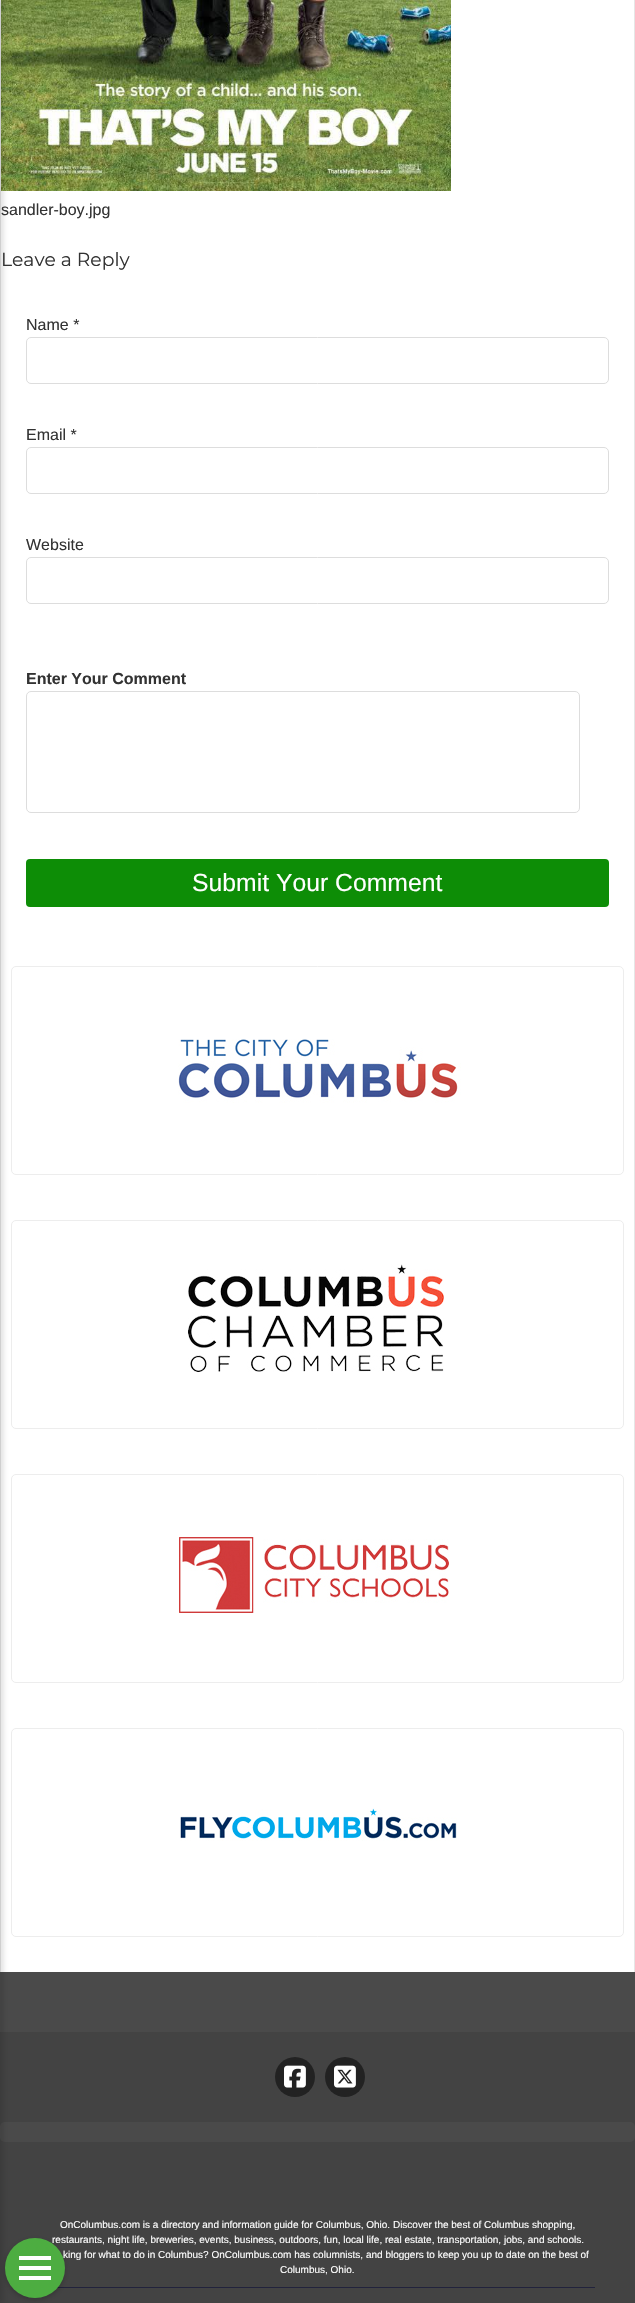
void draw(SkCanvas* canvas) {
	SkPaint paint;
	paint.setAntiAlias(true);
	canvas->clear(0xffffffff);
	paint.setColor(0xffe6e6e6);
	canvas->drawRect(SkRect::MakeXYWH(0, 0, 1, 1972), paint);
	canvas->drawImageRect(SkImages::DeferredFromEncodedData(SkData::MakeFromFileName("img1.png")), SkRect::MakeXYWH(1, 0, 450, 191), SkSamplingOptions());
	paint.setColor(0xff4a4a4a);
	canvas->drawRect(SkRect::MakeXYWH(0, 1972, 635, 60), paint);
	paint.setColor(0xff434343);
	canvas->drawRect(SkRect::MakeXYWH(0, 2032, 635, 271), paint);
	paint.setColor(0xff4a4a4a);
	canvas->drawRoundRect(SkRect::MakeXYWH(0, 2122, 635, 20), 5, 5, paint);
	paint.setColor(0x1a000000);
	paint.setMaskFilter(SkMaskFilter::MakeBlur(kNormal_SkBlurStyle, 2));
	canvas->drawRect(SkRect::MakeXYWH(-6, 0, 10, 2303), paint);
	paint.setMaskFilter(nullptr);
	paint.setColor(0xffe6e6e6);
	canvas->drawRect(SkRect::MakeXYWH(634, 0, 1, 1972), paint);
	SkFont f1(fontMgr->matchFamilyStyle("Liberation Sans", SkFontStyle::Normal()), 16);
	f1.setSubpixel(true);
	paint.setColor(0xff333333);
	canvas->drawString("sandler-boy.jpg", 1, 215, f1, paint);
	SkFont f2(fontMgr->matchFamilyStyle("Montserrat", SkFontStyle::Normal()), 18.75);
	f2.setSubpixel(true);
	canvas->drawString("Leave a Reply", 1, 266, f2, paint);
	canvas->drawString("Name *", 26, 330, f1, paint);
	paint.setStroke(true);
	paint.setStrokeWidth(1);
	paint.setColor(0xffdddddd);
	canvas->drawRoundRect(SkRect::MakeXYWH(26.5, 337.5, 582, 46), 4.5, 4.5, paint);
	paint.setStroke(false);
	paint.setColor(0xff333333);
	canvas->drawString("Email *", 26, 440, f1, paint);
	paint.setStroke(true);
	paint.setColor(0xffdddddd);
	canvas->drawRoundRect(SkRect::MakeXYWH(26.5, 447.5, 582, 46), 4.5, 4.5, paint);
	paint.setStroke(false);
	paint.setColor(0xff333333);
	canvas->drawString("Website", 26, 550, f1, paint);
	paint.setStroke(true);
	paint.setColor(0xffdddddd);
	canvas->drawRoundRect(SkRect::MakeXYWH(26.5, 557.5, 582, 46), 4.5, 4.5, paint);
	SkFont f3(fontMgr->matchFamilyStyle("Liberation Sans", SkFontStyle::Bold()), 16);
	f3.setSubpixel(true);
	paint.setStroke(false);
	paint.setColor(0xff333333);
	canvas->drawString("Enter Your Comment", 26, 684, f3, paint);
	paint.setStroke(true);
	paint.setColor(0xffdddddd);
	canvas->drawRoundRect(SkRect::MakeXYWH(26.5, 691.5, 553, 121), 4.5, 4.5, paint);
	paint.setStroke(false);
	paint.setColor(0xff0d8d06);
	canvas->drawRoundRect(SkRect::MakeXYWH(26, 859, 583, 48), 4, 4, paint);
	SkFont f4(fontMgr->matchFamilyStyle("Liberation Sans", SkFontStyle::Normal()), 24.75);
	f4.setSubpixel(true);
	paint.setColor(0xffffffff);
	canvas->drawString("Submit Your Comment", 192, 891, f4, paint);
	paint.setStroke(true);
	paint.setColor(0xffededed);
	canvas->drawRoundRect(SkRect::MakeXYWH(11.5, 966.5, 612, 208), 4.5, 4.5, paint);
	canvas->drawImageRect(SkImages::DeferredFromEncodedData(SkData::MakeFromFileName("img2.png")), SkRect::MakeXYWH(178, 1039, 283, 64), SkSamplingOptions());
	canvas->drawRoundRect(SkRect::MakeXYWH(11.5, 1220.5, 612, 208), 4.5, 4.5, paint);
	canvas->drawImageRect(SkImages::DeferredFromEncodedData(SkData::MakeFromFileName("img3.png")), SkRect::MakeXYWH(188, 1264, 256, 108), SkSamplingOptions());
	canvas->drawRoundRect(SkRect::MakeXYWH(11.5, 1474.5, 612, 208), 4.5, 4.5, paint);
	canvas->drawImageRect(SkImages::DeferredFromEncodedData(SkData::MakeFromFileName("img4.png")), SkRect::MakeXYWH(179, 1537, 270, 76), SkSamplingOptions());
	canvas->drawRoundRect(SkRect::MakeXYWH(11.5, 1728.5, 612, 208), 4.5, 4.5, paint);
	canvas->drawImageRect(SkImages::DeferredFromEncodedData(SkData::MakeFromFileName("img5.png")), SkRect::MakeXYWH(180, 1808, 277, 33), SkSamplingOptions());
	paint.setStroke(false);
	paint.setColor(0xff22233d);
	canvas->drawRect(SkRect::MakeXYWH(57, 2287, 538, 1), paint);
	paint.setColor(0x33000000);
	paint.setMaskFilter(SkMaskFilter::MakeBlur(kNormal_SkBlurStyle, 2.5));
	canvas->drawRoundRect(SkRect::MakeXYWH(5, 2240, 60, 60), 30, 30, paint);
	paint.setMaskFilter(nullptr);
	SkFont f5(fontMgr->matchFamilyStyle("Liberation Sans", SkFontStyle::Normal()), 10);
	f5.setSubpixel(true);
	paint.setColor(0xffffffff);
	canvas->drawString("restaurants, night life, breweries, events, business, outdoors, fun, local life, real estate, transportation, jobs, and schools.", 52, 2243, f5, paint);
	canvas->drawString("king for what to do in Columbus? OnColumbus.com has columnists, and bloggers to keep you up to date on the best of", 63, 2258, f5, paint);
	paint.setColor(0xff4dad41);
	canvas->drawCircle(35, 2268, 30, paint);
	paint.setColor(0xffffffff);
	canvas->drawRect(SkRect::MakeXYWH(19, 2256, 32, 4), paint);
	canvas->drawRect(SkRect::MakeXYWH(19, 2266, 32, 4), paint);
	canvas->drawRect(SkRect::MakeXYWH(19, 2276, 32, 4), paint);
	paint.setColor(0xff222222);
	canvas->drawCircle(295, 2077, 20, paint);
	canvas->drawImageRect(SkImages::DeferredFromEncodedData(SkData::MakeFromFileName("img6.png")), SkRect::MakeXYWH(284, 2065, 22, 23), SkSamplingOptions());
	canvas->drawCircle(345, 2077, 20, paint);
	canvas->drawImageRect(SkImages::DeferredFromEncodedData(SkData::MakeFromFileName("img7.png")), SkRect::MakeXYWH(334, 2065, 22, 23), SkSamplingOptions());
	paint.setColor(0xffffffff);
	canvas->drawString("OnColumbus.com is a directory and information guide for Columbus, Ohio. Discover the best of Columbus shopping,", 60, 2228, f5, paint);
	canvas->drawString("Columbus, Ohio.", 280, 2273, f5, paint);
}
